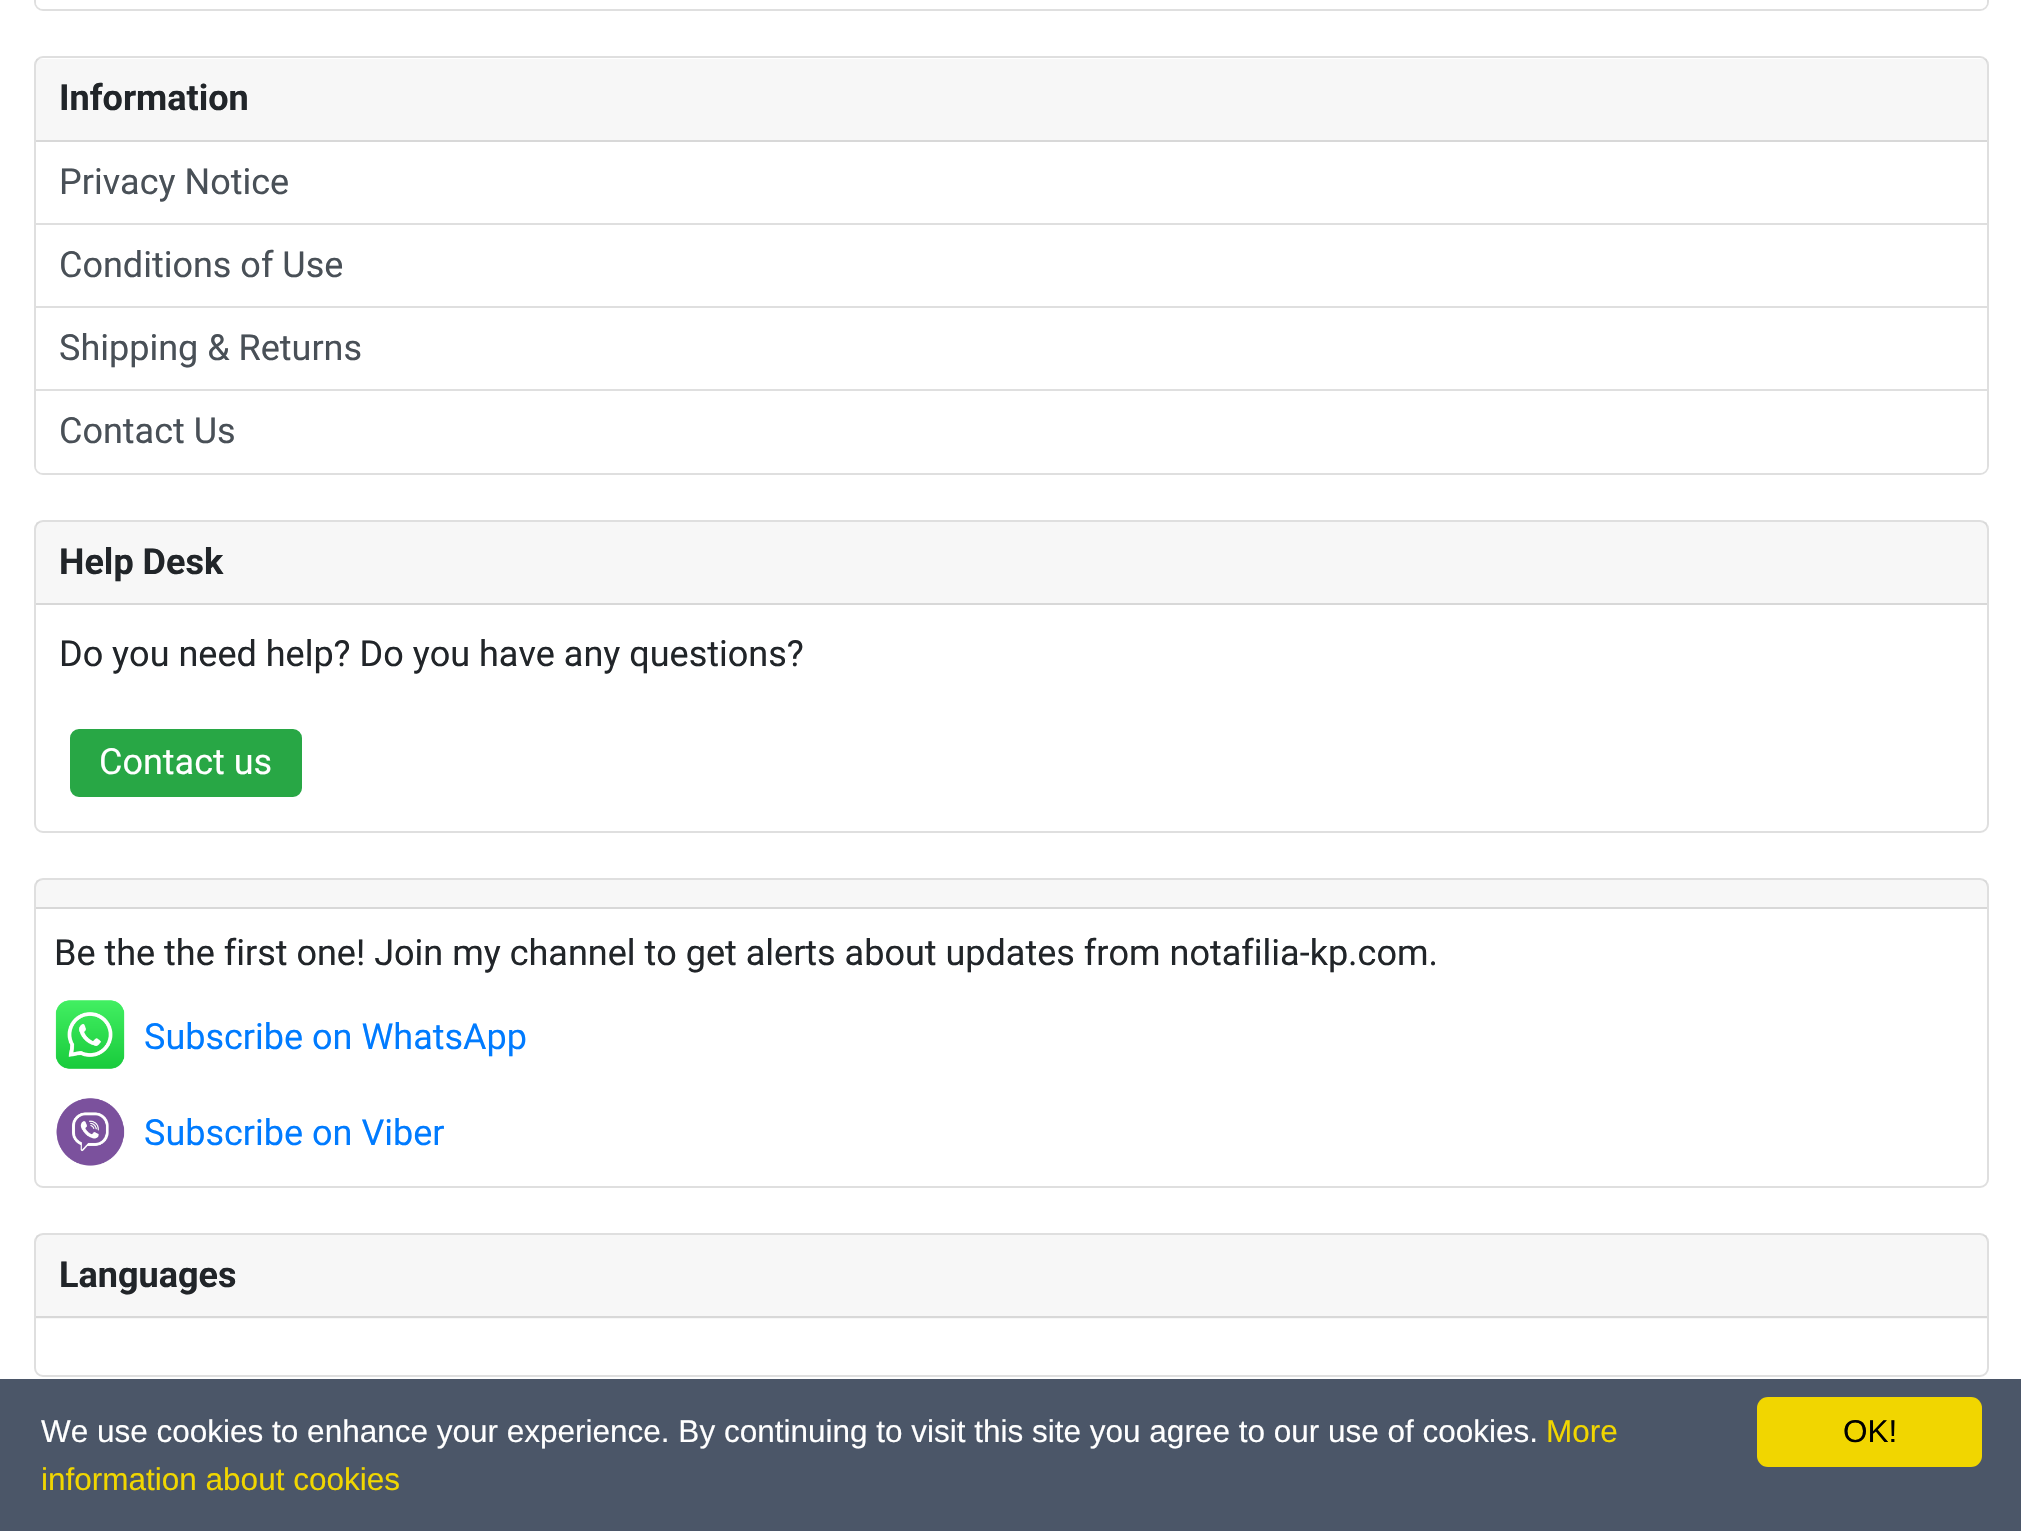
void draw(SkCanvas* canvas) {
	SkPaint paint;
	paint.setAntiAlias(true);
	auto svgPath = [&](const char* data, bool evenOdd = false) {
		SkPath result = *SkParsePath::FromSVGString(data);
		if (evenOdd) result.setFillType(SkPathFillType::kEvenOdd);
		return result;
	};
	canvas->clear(0xffffffff);
	paint.setStroke(true);
	paint.setStrokeWidth(2);
	paint.setColor(0xffdfdfdf);
	canvas->drawRoundRect(SkRect::MakeXYWH(35, -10, 1953, 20), 8, 8, paint);
	paint.setStroke(false);
	paint.setColor(0xffffffff);
	canvas->drawPath(svgPath("M36-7H1987V2C1987 6 1984 9 1980 9H43C39 9 36 6 36 2Z"), paint);
	paint.setStroke(true);
	paint.setColor(0xffdfdfdf);
	canvas->drawRoundRect(SkRect::MakeXYWH(35, 57, 1953, 417), 8, 8, paint);
	paint.setStroke(false);
	paint.setColor(0x08000000);
	canvas->drawRect(SkRect::MakeXYWH(36, 59, 1951, 81), paint);
	paint.setColor(0xffd8d8d8);
	canvas->drawRect(SkRect::MakeXYWH(36, 140, 1951, 2), paint);
	SkFont f1(fontMgr->matchFamilyStyle("Roboto", SkFontStyle::Bold()), 36);
	f1.setSubpixel(true);
	paint.setColor(0xff212529);
	canvas->drawString("Information", 59, 110, f1, paint);
	paint.setColor(0xffdfdfdf);
	canvas->drawRect(SkRect::MakeXYWH(36, 223, 1951, 2), paint);
	SkFont f2(fontMgr->matchFamilyStyle("Roboto", SkFontStyle::Normal()), 36);
	f2.setSubpixel(true);
	paint.setColor(0xff495057);
	canvas->drawString("Privacy Notice", 59, 194, f2, paint);
	paint.setColor(0xffdfdfdf);
	canvas->drawRect(SkRect::MakeXYWH(36, 306, 1951, 2), paint);
	paint.setColor(0xff495057);
	canvas->drawString("Conditions of Use", 59, 277, f2, paint);
	paint.setColor(0xffdfdfdf);
	canvas->drawRect(SkRect::MakeXYWH(36, 389, 1951, 2), paint);
	paint.setColor(0xff495057);
	canvas->drawString("Shipping & Returns", 59, 360, f2, paint);
	paint.setColor(0xffffffff);
	canvas->drawPath(svgPath("M36 392H1987V466C1987 470 1984 473 1980 473H43C39 473 36 470 36 466Z"), paint);
	paint.setColor(0xff495057);
	canvas->drawString("Contact Us", 59, 443, f2, paint);
	paint.setStroke(true);
	paint.setColor(0xffdfdfdf);
	canvas->drawRoundRect(SkRect::MakeXYWH(35, 521, 1953, 311), 8, 8, paint);
	paint.setStroke(false);
	paint.setColor(0x08000000);
	canvas->drawRect(SkRect::MakeXYWH(36, 522, 1951, 81), paint);
	paint.setColor(0xffd8d8d8);
	canvas->drawRect(SkRect::MakeXYWH(36, 603, 1951, 2), paint);
	paint.setColor(0xff212529);
	canvas->drawString("Help Desk", 59, 574, f1, paint);
	canvas->drawString("Do you need help? Do you have any questions?", 59, 666, f2, paint);
	paint.setColor(0xff28a745);
	canvas->drawRoundRect(SkRect::MakeXYWH(71, 730, 230, 66), 8, 8, paint);
	paint.setStroke(true);
	canvas->drawRoundRect(SkRect::MakeXYWH(71, 730, 230, 66), 8, 8, paint);
	paint.setStroke(false);
	paint.setColor(0xffffffff);
	canvas->drawString("Contact us", 99, 774, f2, paint);
	paint.setStroke(true);
	paint.setColor(0xffdfdfdf);
	canvas->drawRoundRect(SkRect::MakeXYWH(35, 879, 1953, 308), 8, 8, paint);
	paint.setStroke(false);
	paint.setColor(0x08000000);
	canvas->drawRect(SkRect::MakeXYWH(36, 880, 1951, 27), paint);
	paint.setColor(0xffd8d8d8);
	canvas->drawRect(SkRect::MakeXYWH(36, 907, 1951, 2), paint);
	paint.setColor(0xff212529);
	canvas->drawString("Be the the first one! Join my channel to get alerts about updates from notafilia-kp.com.", 54, 965, f2, paint);
	canvas->drawImageRect(SkImages::DeferredFromEncodedData(SkData::MakeFromFileName("img1.png")), SkRect::MakeXYWH(55, 1000, 70, 69), SkSamplingOptions());
	paint.setColor(0xff007bff);
	canvas->drawString("Subscribe on WhatsApp", 144, 1049, f2, paint);
	canvas->drawImageRect(SkImages::DeferredFromEncodedData(SkData::MakeFromFileName("img2.png")), SkRect::MakeXYWH(56, 1098, 69, 68), SkSamplingOptions());
	canvas->drawString("Subscribe on Viber", 144, 1145, f2, paint);
	paint.setStroke(true);
	paint.setColor(0xffdfdfdf);
	canvas->drawRoundRect(SkRect::MakeXYWH(35, 1234, 1953, 142), 8, 8, paint);
	paint.setStroke(false);
	paint.setColor(0x08000000);
	canvas->drawRect(SkRect::MakeXYWH(36, 1235, 1951, 84), paint);
	paint.setColor(0xffd8d8d8);
	canvas->drawRect(SkRect::MakeXYWH(36, 1316, 1951, 2), paint);
	paint.setColor(0xff212529);
	canvas->drawString("Languages", 59, 1287, f1, paint);
	paint.setColor(0xff4b5668);
	canvas->drawRect(SkRect::MakeXYWH(0, 1379, 2021, 152), paint);
	SkFont f3(fontMgr->matchFamilyStyle("Liberation Sans", SkFontStyle::Normal()), 31.5);
	f3.setSubpixel(true);
	paint.setColor(0xffffffff);
	canvas->drawString("We use cookies to enhance your experience. By continuing to visit this site you agree to our use of cookies.", 41, 1442, f3, paint);
	paint.setColor(0xfff1d600);
	canvas->drawString("More", 1546, 1442, f3, paint);
	canvas->drawString("information about cookies", 41, 1490, f3, paint);
	canvas->drawRoundRect(SkRect::MakeXYWH(1757, 1397, 225, 70), 11, 11, paint);
	paint.setColor(0xff000000);
	canvas->drawString("OK!", 1843, 1442, f3, paint);
}
